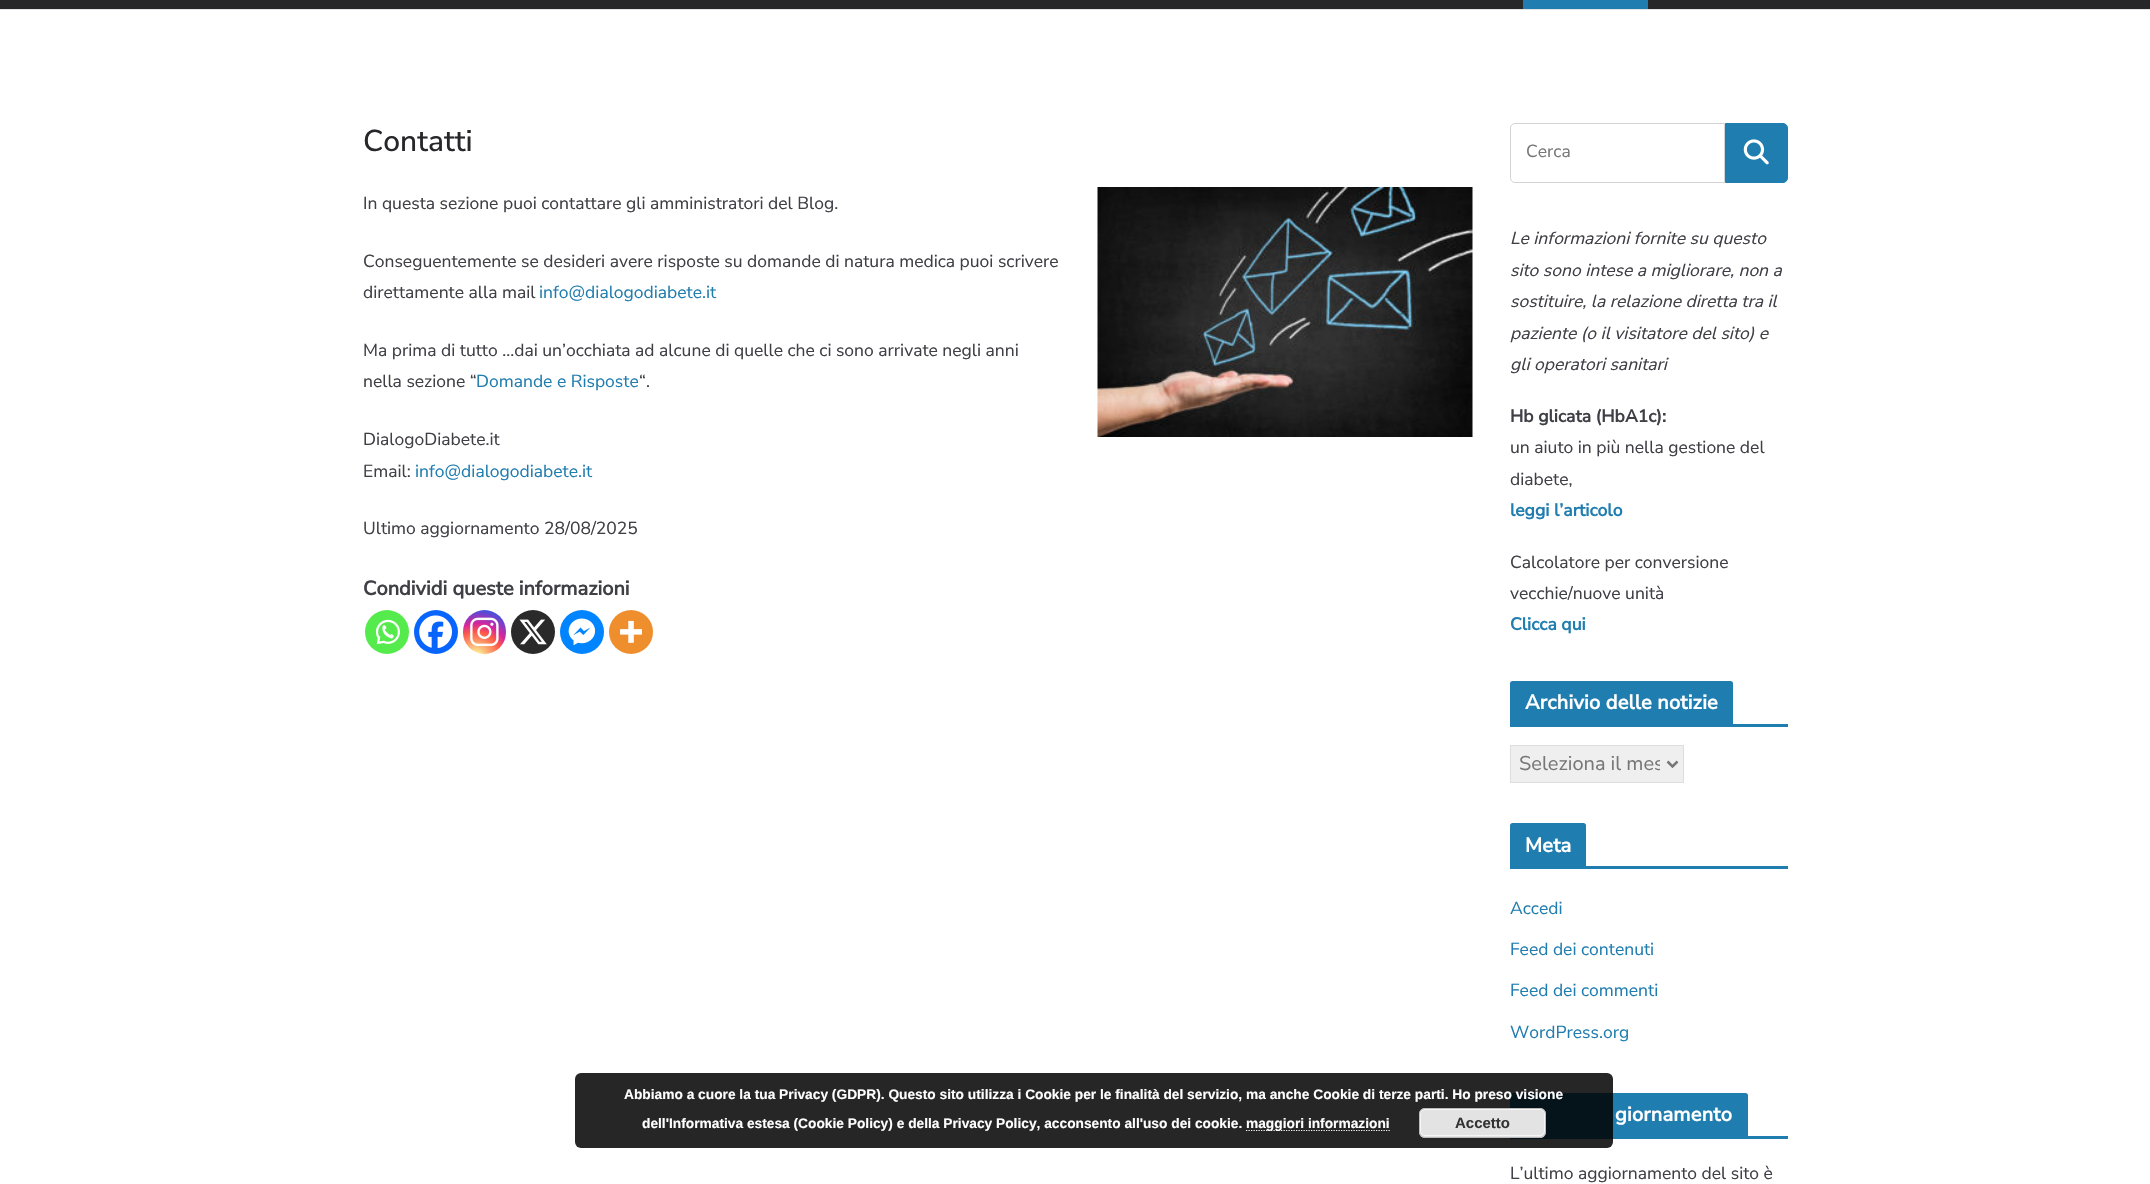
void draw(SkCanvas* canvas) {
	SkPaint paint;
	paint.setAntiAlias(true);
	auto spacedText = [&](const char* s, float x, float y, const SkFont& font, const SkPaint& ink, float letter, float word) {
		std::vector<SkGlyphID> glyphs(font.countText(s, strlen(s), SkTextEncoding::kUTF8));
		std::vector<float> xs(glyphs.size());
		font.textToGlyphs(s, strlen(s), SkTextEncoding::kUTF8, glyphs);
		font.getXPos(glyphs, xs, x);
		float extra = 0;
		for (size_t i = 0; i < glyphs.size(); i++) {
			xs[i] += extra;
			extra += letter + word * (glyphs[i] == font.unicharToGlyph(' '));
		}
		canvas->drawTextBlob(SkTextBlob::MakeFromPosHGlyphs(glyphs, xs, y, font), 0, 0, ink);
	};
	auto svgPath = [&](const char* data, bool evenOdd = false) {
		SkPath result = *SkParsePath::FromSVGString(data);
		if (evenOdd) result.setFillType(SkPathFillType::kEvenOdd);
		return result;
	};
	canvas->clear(0xffe4e4e7);
	paint.setColor(0xff27272a);
	canvas->drawRect(SkRect::MakeXYWH(0, 0, 2150, 9), paint);
	paint.setColor(0xff207daf);
	canvas->drawRect(SkRect::MakeXYWH(1523, 0, 125, 9), paint);
	paint.setColor(0xffffffff);
	canvas->drawRect(SkRect::MakeXYWH(0, 10, 2150, 1174), paint);
	SkFont f1(fontMgr->matchFamilyStyle("Nunito Sans", SkFontStyle(500, SkFontStyle::kNormal_Width, SkFontStyle::kUpright_Slant)), 30);
	f1.setSubpixel(true);
	paint.setColor(0xff27272a);
	canvas->drawString("Contatti", 363, 151, f1, paint);
	SkFont f2(fontMgr->matchFamilyStyle("Nunito Sans", SkFontStyle::Normal()), 17.5);
	f2.setSubpixel(true);
	paint.setColor(0xff3f3f46);
	canvas->drawString("In questa sezione puoi contattare gli amministratori del Blog.", 363, 209, f2, paint);
	canvas->drawImageRect(SkImages::DeferredFromEncodedData(SkData::MakeFromFileName("img1.png")), SkRect::MakeXYWH(1097, 187, 376, 250), SkSamplingOptions());
	canvas->drawString("Conseguentemente se desideri avere risposte su domande di natura medica puoi scrivere", 363, 267, f2, paint);
	canvas->drawString("direttamente alla mail", 363, 298, f2, paint);
	paint.setColor(0xff207daf);
	canvas->drawString("info@dialogodiabete.it", 539, 298, f2, paint);
	paint.setColor(0xff3f3f46);
	canvas->drawString("Ma prima di tutto …dai un’occhiata ad alcune di quelle che ci sono arrivate negli anni", 363, 356, f2, paint);
	canvas->drawString("nella sezione “", 363, 387, f2, paint);
	paint.setColor(0xff207daf);
	canvas->drawString("Domande e Risposte", 476, 387, f2, paint);
	paint.setColor(0xff3f3f46);
	canvas->drawString("“.", 639, 387, f2, paint);
	canvas->drawString("DialogoDiabete.it", 363, 445, f2, paint);
	canvas->drawString("Email:", 363, 477, f2, paint);
	paint.setColor(0xff207daf);
	canvas->drawString("info@dialogodiabete.it", 415, 477, f2, paint);
	paint.setColor(0xff3f3f46);
	canvas->drawString("Ultimo aggiornamento 28/08/2025", 363, 534, f2, paint);
	SkFont f3(fontMgr->matchFamilyStyle("Nunito Sans", SkFontStyle::Bold()), 20);
	f3.setSubpixel(true);
	canvas->drawString("Condividi queste informazioni", 363, 595, f3, paint);
	paint.setColor(0xff55eb4c);
	canvas->drawCircle(387, 632, 22, paint);
	canvas->drawImageRect(SkImages::DeferredFromEncodedData(SkData::MakeFromFileName("img2.png")), SkRect::MakeXYWH(375, 619, 25, 26), SkSamplingOptions());
	paint.setColor(0xff0765fe);
	canvas->drawCircle(436, 632, 22, paint);
	canvas->drawImageRect(SkImages::DeferredFromEncodedData(SkData::MakeFromFileName("img3.png")), SkRect::MakeXYWH(419, 615, 33, 34), SkSamplingOptions());
	{
		const SkColor colors[] = {0xfffdf497, 0xfffdf497, 0xfffd5949, 0xffd6249f, 0xff285aeb};
		const float stops[] = {0, 0.05, 0.45, 0.6, 0.9};
		paint.setShader(SkGradientShader::MakeRadial({476, 657}, 56, colors, stops, 5, SkTileMode::kClamp));
		paint.setAlpha(255);
	}
	canvas->drawRoundRect(SkRect::MakeXYWH(463, 610, 43, 44), 21.5, 21.5, paint);
	canvas->drawImageRect(SkImages::DeferredFromEncodedData(SkData::MakeFromFileName("img4.png")), SkRect::MakeXYWH(470, 617, 29, 30), SkSamplingOptions());
	paint.setShader(nullptr);
	paint.setColor(0xff2a2a2a);
	canvas->drawCircle(533, 632, 22, paint);
	canvas->drawImageRect(SkImages::DeferredFromEncodedData(SkData::MakeFromFileName("img5.png")), SkRect::MakeXYWH(519, 619, 28, 26), SkSamplingOptions());
	paint.setColor(0xff0084ff);
	canvas->drawCircle(582, 632, 22, paint);
	canvas->drawImageRect(SkImages::DeferredFromEncodedData(SkData::MakeFromFileName("img6.png")), SkRect::MakeXYWH(568, 618, 28, 28), SkSamplingOptions());
	paint.setColor(0xffee8e2d);
	canvas->drawCircle(631, 632, 22, paint);
	canvas->drawImageRect(SkImages::DeferredFromEncodedData(SkData::MakeFromFileName("img7.png")), SkRect::MakeXYWH(620, 620, 22, 23), SkSamplingOptions());
	paint.setStroke(true);
	paint.setStrokeWidth(1);
	paint.setColor(0xffd4d4d8);
	canvas->drawPath(svgPath("M1515 123.5H1724.5V182.5H1515C1512.5 182.5 1510.5 180.5 1510.5 178V128C1510.5 125.5 1512.5 123.5 1515 123.5Z"), paint);
	paint.setStroke(false);
	paint.setColor(0xff777777);
	canvas->drawString("Cerca", 1526, 157, f2, paint);
	paint.setColor(0xff207daf);
	canvas->drawPath(svgPath("M1725.5 123.5H1783C1785.5 123.5 1787.5 125.5 1787.5 128V178C1787.5 180.5 1785.5 182.5 1783 182.5H1725.5Z"), paint);
	paint.setStroke(true);
	canvas->drawPath(svgPath("M1725.5 123.5H1783C1785.5 123.5 1787.5 125.5 1787.5 128V178C1787.5 180.5 1785.5 182.5 1783 182.5H1725.5Z"), paint);
	canvas->drawImageRect(SkImages::DeferredFromEncodedData(SkData::MakeFromFileName("img8.png")), SkRect::MakeXYWH(1743, 139, 26, 26), SkSamplingOptions());
	SkFont f4(fontMgr->matchFamilyStyle("Nunito Sans", SkFontStyle::Italic()), 17.5);
	f4.setSubpixel(true);
	paint.setStroke(false);
	paint.setColor(0xff3f3f46);
	canvas->drawString("Le informazioni fornite su questo", 1510, 244, f4, paint);
	canvas->drawString("sito sono intese a migliorare, non a", 1510, 276, f4, paint);
	canvas->drawString("sostituire, la relazione diretta tra il", 1510, 307, f4, paint);
	canvas->drawString("paziente (o il visitatore del sito) e", 1510, 339, f4, paint);
	canvas->drawString("gli operatori sanitari", 1510, 370, f4, paint);
	SkFont f5(fontMgr->matchFamilyStyle("Nunito Sans", SkFontStyle::Bold()), 17.5);
	f5.setSubpixel(true);
	canvas->drawString("Hb glicata (HbA1c):", 1510, 422, f5, paint);
	canvas->drawString("un aiuto in più nella gestione del", 1510, 453, f2, paint);
	canvas->drawString("diabete,", 1510, 485, f2, paint);
	paint.setColor(0xff207daf);
	canvas->drawString("leggi l’articolo", 1510, 516, f5, paint);
	paint.setColor(0xff3f3f46);
	canvas->drawString("Calcolatore per conversione", 1510, 568, f2, paint);
	canvas->drawString("vecchie/nuove unità", 1510, 599, f2, paint);
	paint.setColor(0xff207daf);
	canvas->drawString("Clicca qui", 1510, 630, f5, paint);
	canvas->drawRect(SkRect::MakeXYWH(1510, 724, 278, 3), paint);
	canvas->drawPath(svgPath("M1512.5 681H1730.5C1732 681 1733 682 1733 683.5V724H1510V683.5C1510 682 1511 681 1512.5 681Z"), paint);
	paint.setColor(0xffffffff);
	spacedText("Archivio delle notizie", 1525, 709, f3, paint, 0.2, 0);
	paint.setColor(0xffefefef);
	canvas->drawRect(SkRect::MakeXYWH(1510.5, 745.5, 173, 37), paint);
	paint.setStroke(true);
	paint.setColor(0xffdddddd);
	canvas->drawRect(SkRect::MakeXYWH(1510.5, 745.5, 173, 37), paint);
	paint.setStrokeWidth(2.5);
	paint.setColor(0xff777777);
	canvas->drawPath(svgPath("M1667.5 761.5L1672.5 766.5L1677.5 761.5"), paint);
	canvas->save();
	canvas->clipRect(SkRect::MakeXYWH(1519, 749, 141, 30));
	SkFont f6(fontMgr->matchFamilyStyle("Nunito Sans", SkFontStyle::Normal()), 20);
	f6.setSubpixel(true);
	paint.setStroke(false);
	canvas->drawString("Seleziona il mes", 1519, 770, f6, paint);
	canvas->restore();
	paint.setColor(0xff207daf);
	canvas->drawRect(SkRect::MakeXYWH(1510, 866, 278, 3), paint);
	canvas->drawPath(svgPath("M1512.5 823H1583.5C1585 823 1586 824 1586 825.5V866H1510V825.5C1510 824 1511 823 1512.5 823Z"), paint);
	paint.setColor(0xffffffff);
	spacedText("Meta", 1525, 852, f3, paint, 0.2, 0);
	paint.setColor(0xff207daf);
	canvas->drawString("Accedi", 1510, 914, f2, paint);
	canvas->drawString("Feed dei contenuti", 1510, 955, f2, paint);
	canvas->drawString("Feed dei commenti", 1510, 996, f2, paint);
	canvas->drawString("WordPress.org", 1510, 1038, f2, paint);
	canvas->drawRect(SkRect::MakeXYWH(1510, 1136, 278, 3), paint);
	canvas->drawPath(svgPath("M1512.5 1093H1745.5C1747 1093 1748 1094 1748 1095.5V1136H1510V1095.5C1510 1094 1511 1093 1512.5 1093Z"), paint);
	paint.setColor(0xffffffff);
	spacedText("giornamento", 1615, 1121, f3, paint, 0.2, 0);
	paint.setColor(0xff3f3f46);
	canvas->drawString("L’ultimo aggiornamento del sito è", 1510, 1179, f2, paint);
	paint.setColor(0xd9000000);
	canvas->drawRoundRect(SkRect::MakeXYWH(575, 1073, 1038, 75), 6, 6, paint);
	SkFont f7(fontMgr->matchFamilyStyle("Liberation Sans", SkFontStyle::Bold()), 13.75);
	f7.setSubpixel(true);
	paint.setColor(0xffffffff);
	canvas->drawString("Abbiamo a cuore la tua Privacy (GDPR). Questo sito utilizza i Cookie per le finalità del servizio, ma anche Cookie di terze parti. Ho preso visione", 624, 1099, f7, paint);
	canvas->drawString("dell'Informativa estesa (Cookie Policy) e della Privacy Policy, acconsento all'uso dei cookie.", 642, 1128, f7, paint);
	paint.setStroke(true);
	paint.setStrokeWidth(1.2);
	paint.setPathEffect(SkDashPathEffect::Make({{1.25f, 1.25f}}, 0));
	canvas->drawPath(svgPath("M1246 1130.5H1390"), paint);
	paint.setPathEffect(nullptr);
	paint.setStroke(false);
	canvas->drawString("maggiori informazioni", 1246, 1128, f7, paint);
	paint.setColor(0xffe3e3e3);
	canvas->drawRoundRect(SkRect::MakeXYWH(1419, 1108, 127, 30), 6, 6, paint);
	paint.setStroke(true);
	paint.setStrokeWidth(1);
	paint.setColor(0xfff6f6f6);
	canvas->drawRoundRect(SkRect::MakeXYWH(1420.5, 1109.5, 124, 26), 4.5, 4.5, paint);
	paint.setColor(0xffbbbbbb);
	canvas->drawRoundRect(SkRect::MakeXYWH(1419.5, 1108.5, 126, 29), 5.5, 5.5, paint);
	SkFont f8(fontMgr->matchFamilyStyle("Liberation Sans", SkFontStyle::Bold()), 15);
	f8.setSubpixel(true);
	paint.setStroke(false);
	paint.setColor(0xff333333);
	canvas->drawString("Accetto", 1455, 1128, f8, paint);
}
